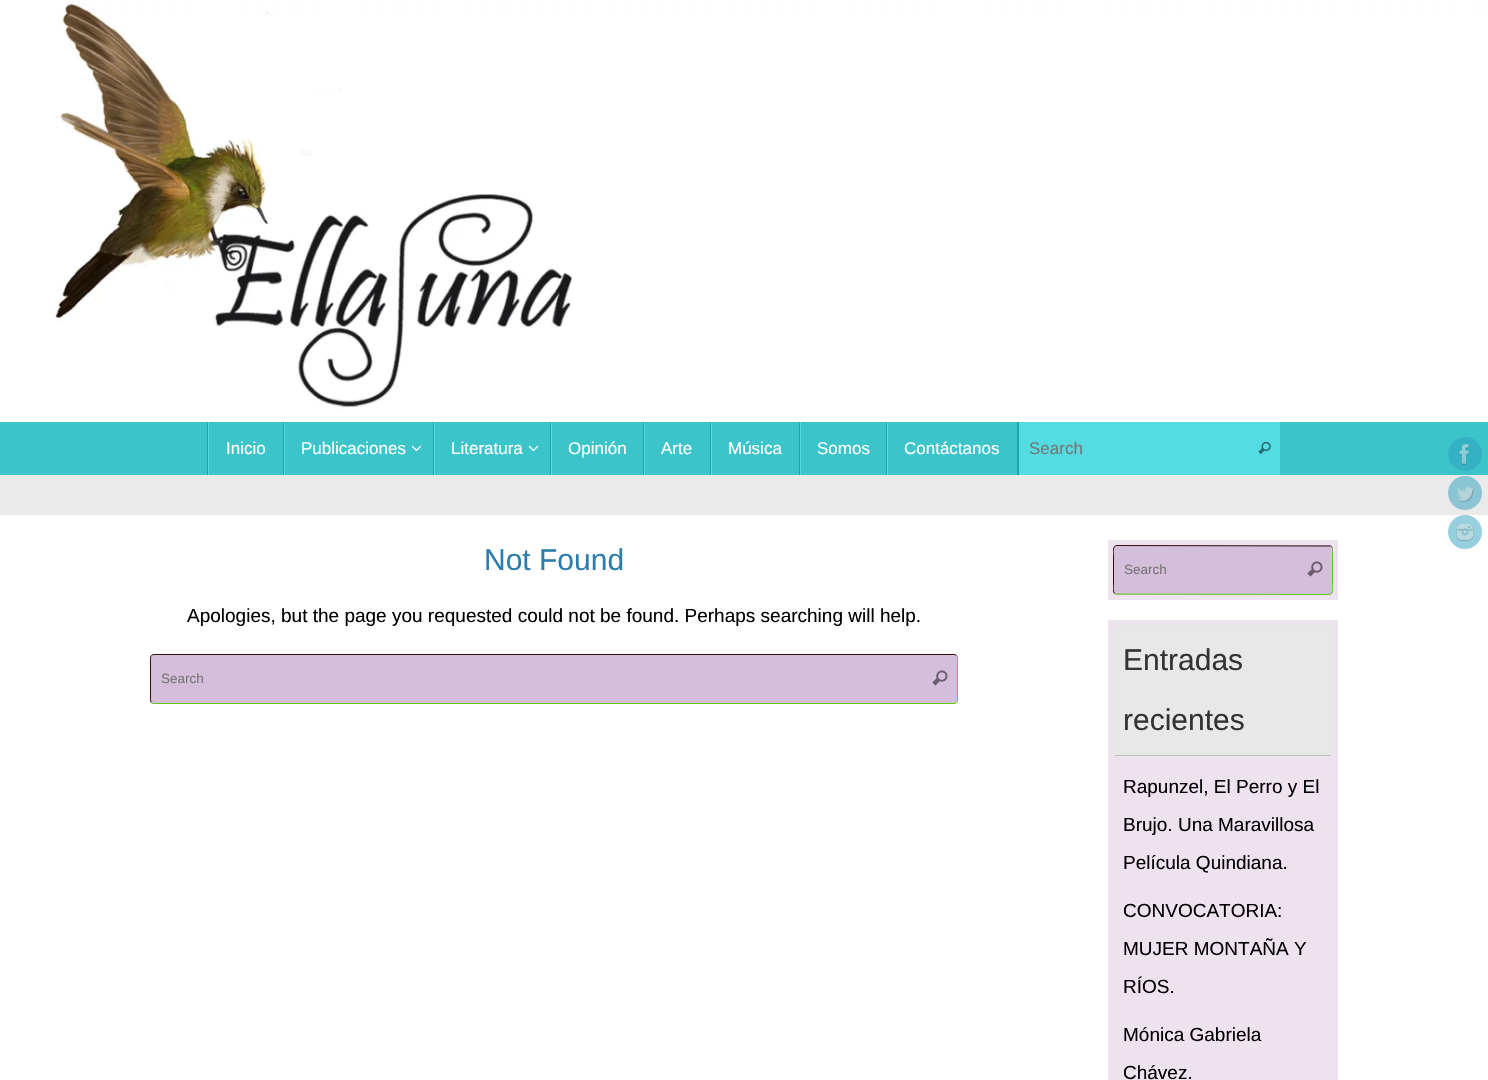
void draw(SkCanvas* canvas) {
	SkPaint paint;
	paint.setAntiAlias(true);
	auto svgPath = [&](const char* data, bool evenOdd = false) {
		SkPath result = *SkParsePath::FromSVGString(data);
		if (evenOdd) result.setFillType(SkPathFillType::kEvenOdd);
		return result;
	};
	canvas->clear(0xffeaeaea);
	canvas->drawImageRect(SkImages::DeferredFromEncodedData(SkData::MakeFromFileName("img1.png")), SkRect::MakeXYWH(0, 0, 1488, 422), SkSamplingOptions());
	paint.setColor(0xfffbfafb);
	canvas->drawRect(SkRect::MakeXYWH(300, 150, 12, 6), paint);
	paint.setColor(0xff3bc5cb);
	canvas->drawRect(SkRect::MakeXYWH(0, 422, 1488, 53), paint);
	paint.setColor(0xff1da7ad);
	canvas->drawRect(SkRect::MakeXYWH(207, 422, 1, 53), paint);
	paint.setColor(0xff53dde3);
	canvas->drawRect(SkRect::MakeXYWH(208, 422, 1, 53), paint);
	canvas->drawRect(SkRect::MakeXYWH(284, 422, 1, 53), paint);
	paint.setColor(0xff1da7ad);
	canvas->drawRect(SkRect::MakeXYWH(283, 422, 1, 53), paint);
	SkFont f1(fontMgr->matchFamilyStyle("Liberation Sans", SkFontStyle::Normal()), 17);
	f1.setSubpixel(true);
	paint.setColor(0xffffffff);
	canvas->drawString("Inicio", 226, 454, f1, paint);
	paint.setColor(0xff53dde3);
	canvas->drawRect(SkRect::MakeXYWH(434, 422, 1, 53), paint);
	paint.setColor(0xff1da7ad);
	canvas->drawRect(SkRect::MakeXYWH(433, 422, 1, 53), paint);
	paint.setColor(0xffffffff);
	canvas->drawString("Publicaciones", 301, 454, f1, paint);
	canvas->drawImageRect(SkImages::DeferredFromEncodedData(SkData::MakeFromFileName("img2.png")), SkRect::MakeXYWH(411, 445, 11, 7), SkSamplingOptions());
	paint.setColor(0xff53dde3);
	canvas->drawRect(SkRect::MakeXYWH(551, 422, 1, 53), paint);
	paint.setColor(0xff1da7ad);
	canvas->drawRect(SkRect::MakeXYWH(550, 422, 1, 53), paint);
	paint.setColor(0xffffffff);
	canvas->drawString("Literatura", 451, 454, f1, paint);
	canvas->drawImageRect(SkImages::DeferredFromEncodedData(SkData::MakeFromFileName("img2.png")), SkRect::MakeXYWH(528, 445, 11, 7), SkSamplingOptions());
	paint.setColor(0xff53dde3);
	canvas->drawRect(SkRect::MakeXYWH(644, 422, 1, 53), paint);
	paint.setColor(0xff1da7ad);
	canvas->drawRect(SkRect::MakeXYWH(643, 422, 1, 53), paint);
	paint.setColor(0xffffffff);
	canvas->drawString("Opinión", 568, 454, f1, paint);
	paint.setColor(0xff53dde3);
	canvas->drawRect(SkRect::MakeXYWH(711, 422, 1, 53), paint);
	paint.setColor(0xff1da7ad);
	canvas->drawRect(SkRect::MakeXYWH(710, 422, 1, 53), paint);
	paint.setColor(0xffffffff);
	canvas->drawString("Arte", 661, 454, f1, paint);
	paint.setColor(0xff53dde3);
	canvas->drawRect(SkRect::MakeXYWH(800, 422, 1, 53), paint);
	paint.setColor(0xff1da7ad);
	canvas->drawRect(SkRect::MakeXYWH(799, 422, 1, 53), paint);
	paint.setColor(0xffffffff);
	canvas->drawString("Música", 728, 454, f1, paint);
	paint.setColor(0xff53dde3);
	canvas->drawRect(SkRect::MakeXYWH(887, 422, 1, 53), paint);
	paint.setColor(0xff1da7ad);
	canvas->drawRect(SkRect::MakeXYWH(886, 422, 1, 53), paint);
	paint.setColor(0xffffffff);
	canvas->drawString("Somos", 817, 454, f1, paint);
	paint.setColor(0xff1da7ad);
	canvas->drawRect(SkRect::MakeXYWH(1017, 422, 2, 53), paint);
	paint.setColor(0xffffffff);
	canvas->drawString("Contáctanos", 904, 454, f1, paint);
	paint.setColor(0xff53dde3);
	canvas->drawRect(SkRect::MakeXYWH(1019, 422, 261, 53), paint);
	paint.setColor(0xff757575);
	canvas->drawString("Search", 1029, 454, f1, paint);
	canvas->drawImageRect(SkImages::DeferredFromEncodedData(SkData::MakeFromFileName("img3.png")), SkRect::MakeXYWH(1258, 441, 13, 14), SkSamplingOptions());
	paint.setColor(0xff34b2c3);
	canvas->drawCircle(1465, 454, 17, paint);
	canvas->drawImageRect(SkImages::DeferredFromEncodedData(SkData::MakeFromFileName("img4.png")), SkRect::MakeXYWH(1458, 444, 12, 22), SkSamplingOptions());
	paint.setColor(0xff8bc4d2);
	canvas->drawCircle(1465, 493, 17, paint);
	canvas->drawImageRect(SkImages::DeferredFromEncodedData(SkData::MakeFromFileName("img5.png")), SkRect::MakeXYWH(1457, 487, 18, 15), SkSamplingOptions());
	paint.setColor(0xffffffff);
	canvas->drawRect(SkRect::MakeXYWH(0, 515, 1488, 565), paint);
	paint.setColor(0xff96cfdd);
	canvas->drawCircle(1465, 532, 17, paint);
	canvas->drawImageRect(SkImages::DeferredFromEncodedData(SkData::MakeFromFileName("img6.png")), SkRect::MakeXYWH(1456, 524, 18, 18), SkSamplingOptions());
	SkFont f2(fontMgr->matchFamilyStyle("Liberation Sans", SkFontStyle::Normal()), 30);
	f2.setSubpixel(true);
	paint.setColor(0xff2c7dac);
	canvas->drawString("Not Found", 484, 570, f2, paint);
	SkFont f3(fontMgr->matchFamilyStyle("Liberation Sans", SkFontStyle::Normal()), 19);
	f3.setSubpixel(true);
	paint.setColor(0xff000000);
	canvas->drawString("Apologies, but the page you requested could not be found. Perhaps searching will help.", 187, 622, f3, paint);
	paint.setColor(0xffd5bddc);
	canvas->drawRoundRect(SkRect::MakeXYWH(150, 654, 808, 50), 4, 4, paint);
	paint.setStroke(true);
	paint.setStrokeWidth(1);
	paint.setColor(0xff5fcb17);
	canvas->drawPath(svgPath("M956.5 655.5C957 656 957.5 657 957.5 658V700C957.5 701 957 702 956.5 702.5C956 703 955 703.5 954 703.5H154C153 703.5 152 703 151.5 702.5"), paint);
	paint.setColor(0xff360d0d);
	canvas->drawPath(svgPath("M151.5 702.5C151 702 150.5 701 150.5 700V658C150.5 657 151 656 151.5 655.5C152 655 153 654.5 154 654.5H954C955 654.5 956 655 956.5 655.5"), paint);
	SkFont f4(fontMgr->matchFamilyStyle("Liberation Sans", SkFontStyle::Normal()), 13.5);
	f4.setSubpixel(true);
	paint.setStroke(false);
	paint.setColor(0xff757575);
	canvas->drawString("Search", 161, 683, f4, paint);
	canvas->drawImageRect(SkImages::DeferredFromEncodedData(SkData::MakeFromFileName("img7.png")), SkRect::MakeXYWH(932, 670, 16, 16), SkSamplingOptions());
	paint.setColor(0xffefe2ef);
	canvas->drawRect(SkRect::MakeXYWH(1108, 540, 230, 60), paint);
	paint.setColor(0xffd5bddc);
	canvas->drawRoundRect(SkRect::MakeXYWH(1113, 545, 220, 50), 4, 4, paint);
	canvas->save();
	canvas->clipRect(SkRect::MakeXYWH(1113, 545, 220, 50));
	paint.setStroke(true);
	paint.setColor(0xff5fcb17);
	canvas->drawPath(svgPath("M1331.5 546.5C1333.5 548.5 1332.5 554.5 1332.5 556V584C1332.5 586.5 1334 594.5 1329 594.5L1115.5 594L1114.5 593.5"), paint);
	paint.setColor(0xff360d0d);
	canvas->drawPath(svgPath("M1114.5 593.5C1112.5 591.5 1113.5 585.5 1113.5 584V556C1113.5 553.5 1112 545.5 1117 545.5L1330.5 546L1331.5 546.5"), paint);
	canvas->restore();
	paint.setStroke(false);
	paint.setColor(0xff757575);
	canvas->drawString("Search", 1124, 574, f4, paint);
	canvas->drawImageRect(SkImages::DeferredFromEncodedData(SkData::MakeFromFileName("img7.png")), SkRect::MakeXYWH(1307, 561, 16, 16), SkSamplingOptions());
	paint.setColor(0xffefe2ef);
	canvas->drawRect(SkRect::MakeXYWH(1108, 620, 230, 460), paint);
	paint.setColor(0xffe9e8e9);
	canvas->drawRoundRect(SkRect::MakeXYWH(1113, 625, 220, 131), 4, 4, paint);
	paint.setColor(0xffc1c0c1);
	canvas->drawRect(SkRect::MakeXYWH(1115, 755, 216, 1), paint);
	paint.setColor(0xff333333);
	canvas->drawString("Entradas", 1123, 670, f2, paint);
	canvas->drawString("recientes", 1123, 730, f2, paint);
	paint.setColor(0xff000000);
	canvas->drawString("Rapunzel, El Perro y El", 1123, 793, f3, paint);
	canvas->drawString("Brujo. Una Maravillosa", 1123, 831, f3, paint);
	canvas->drawString("Película Quindiana.", 1123, 869, f3, paint);
	canvas->drawString("CONVOCATORIA:", 1123, 917, f3, paint);
	canvas->drawString("MUJER MONTAÑA Y", 1123, 955, f3, paint);
	canvas->drawString("RÍOS.", 1123, 993, f3, paint);
	canvas->drawString("Mónica Gabriela", 1123, 1041, f3, paint);
	canvas->drawString("Chávez.", 1123, 1079, f3, paint);
}
